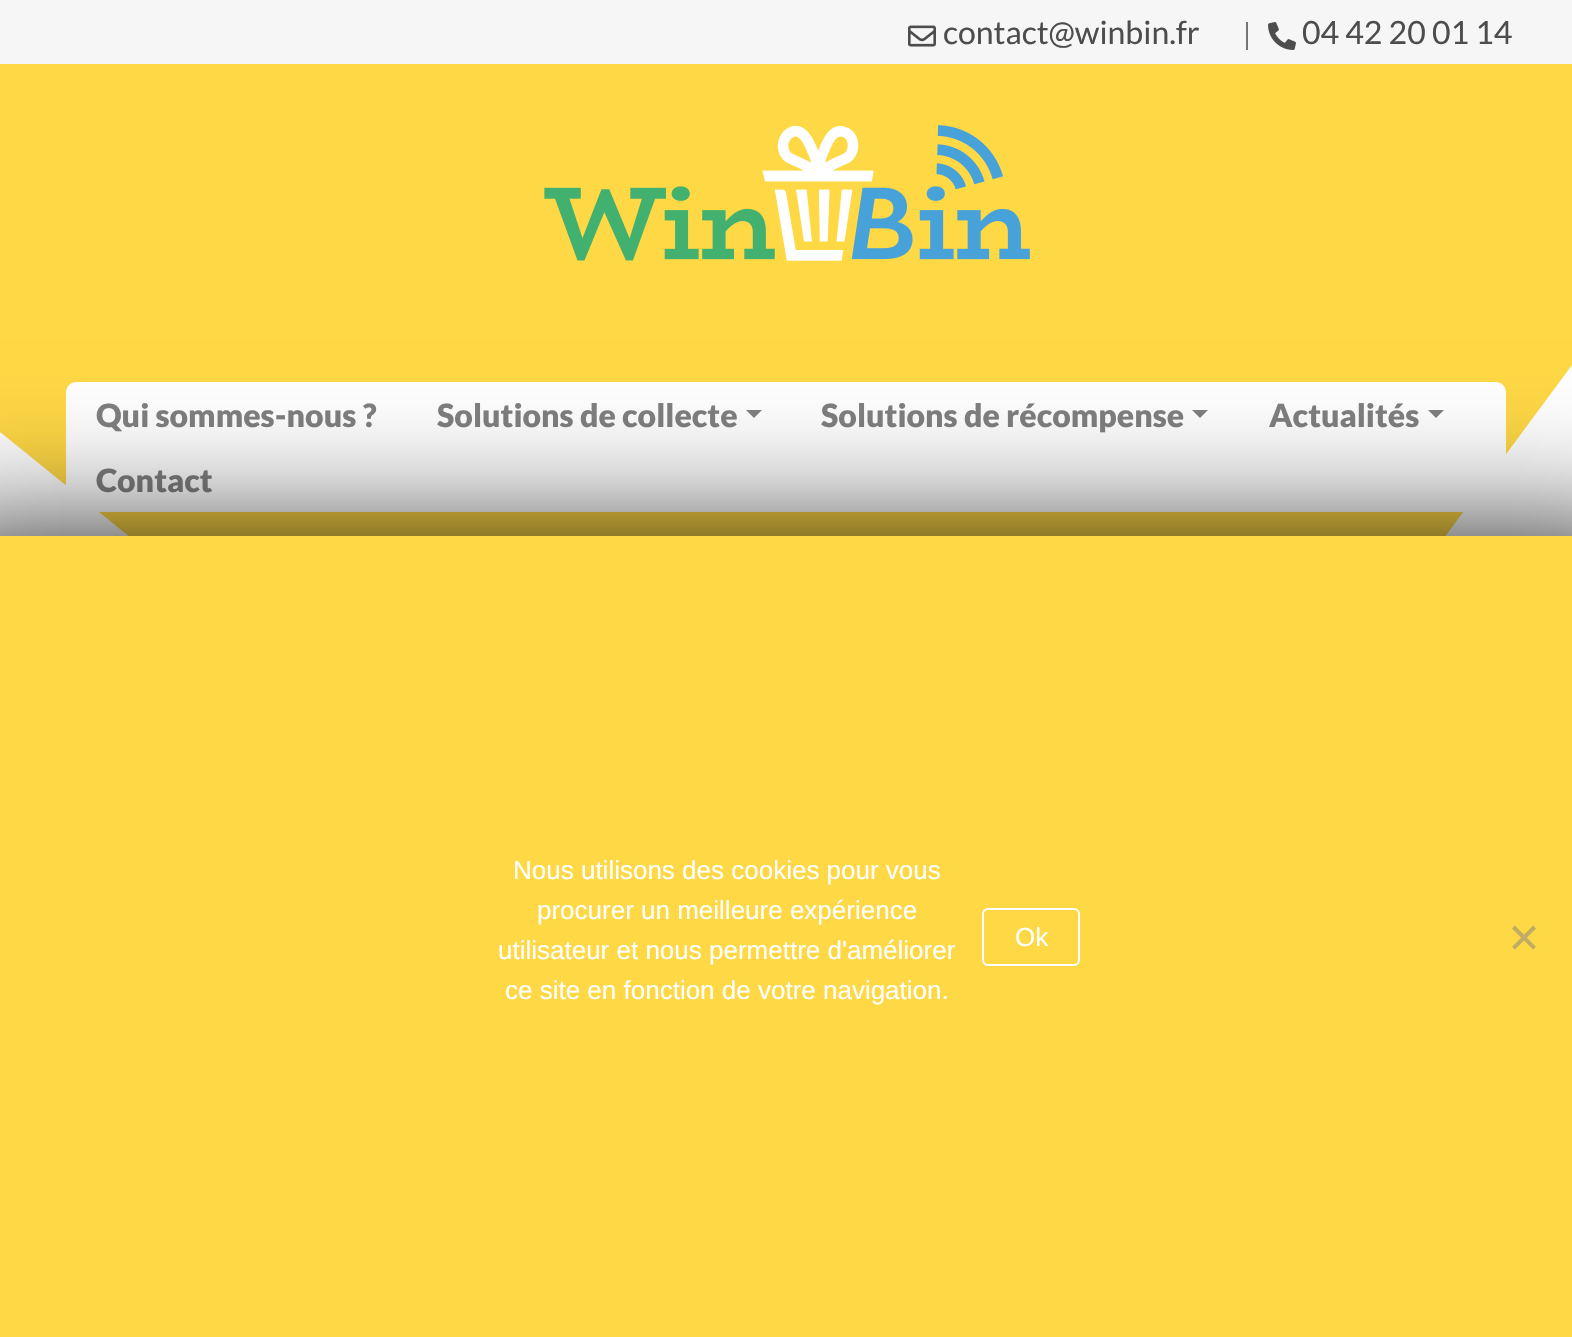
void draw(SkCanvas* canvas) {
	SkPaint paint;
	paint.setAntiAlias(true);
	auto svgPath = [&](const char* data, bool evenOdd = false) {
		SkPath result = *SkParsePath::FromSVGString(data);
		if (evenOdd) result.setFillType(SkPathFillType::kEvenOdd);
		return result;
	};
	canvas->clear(0xffffffff);
	paint.setColor(0xfff6f6f6);
	canvas->drawRect(SkRect::MakeXYWH(0, 0, 1572, 64), paint);
	canvas->drawImageRect(SkImages::DeferredFromEncodedData(SkData::MakeFromFileName("img1.png")), SkRect::MakeXYWH(908, 25, 28, 22), SkSamplingOptions());
	SkFont f1(fontMgr->matchFamilyStyle("Lato", SkFontStyle::Normal()), 32);
	f1.setSubpixel(true);
	paint.setColor(0xff4d4d4d);
	canvas->drawString("contact@winbin.fr", 943, 44, f1, paint);
	canvas->drawImageRect(SkImages::DeferredFromEncodedData(SkData::MakeFromFileName("img2.png")), SkRect::MakeXYWH(1268, 22, 28, 28), SkSamplingOptions());
	canvas->drawString("04 42 20 01 14", 1302, 44, f1, paint);
	paint.setColor(0xff757575);
	canvas->drawRect(SkRect::MakeXYWH(1246, 22, 2, 28), paint);
	canvas->save();
	canvas->clipRect(SkRect::MakeXYWH(0, 64, 1572, 688));
	paint.setColor(0xffffd845);
	canvas->drawPath(svgPath("M612-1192L1272-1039L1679-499L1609 315L1393 607L396 752L-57 386L-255-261L9-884Z", true), paint);
	canvas->restore();
	canvas->drawImageRect(SkImages::DeferredFromEncodedData(SkData::MakeFromFileName("img3.png")), SkRect::MakeXYWH(544, 125, 486, 136), SkSamplingOptions());
	paint.setColor(0xffffffff);
	canvas->drawRoundRect(SkRect::MakeXYWH(66, 382, 1440, 130), 10, 10, paint);
	SkFont f2(fontMgr->matchFamilyStyle("Lato", SkFontStyle(900, SkFontStyle::kNormal_Width, SkFontStyle::kUpright_Slant)), 32);
	f2.setSubpixel(true);
	paint.setColor(0xff808080);
	canvas->drawString("Qui sommes-nous ?", 96, 427, f2, paint);
	canvas->drawString("Solutions de collecte", 437, 427, f2, paint);
	canvas->drawPath(svgPath("M746 410H762L754 418Z"), paint);
	canvas->drawString("Solutions de récompense", 821, 427, f2, paint);
	canvas->drawPath(svgPath("M1192 410H1208L1200 418Z"), paint);
	canvas->drawString("Actualités", 1269, 427, f2, paint);
	canvas->drawPath(svgPath("M1428 410H1444L1436 418Z"), paint);
	canvas->drawString("Contact", 96, 492, f2, paint);
	paint.setColor(0xff000000);
	paint.setMaskFilter(SkMaskFilter::MakeBlur(kNormal_SkBlurStyle, 70));
	canvas->drawRect(SkRect::MakeXYWH(-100, 548, 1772, 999), paint);
	paint.setMaskFilter(nullptr);
	paint.setColor(0xffffd845);
	canvas->drawRect(SkRect::MakeXYWH(0, 536, 1572, 801), paint);
	SkFont f3(fontMgr->matchFamilyStyle("Liberation Sans", SkFontStyle::Normal()), 26);
	f3.setSubpixel(true);
	paint.setColor(0xffffffff);
	canvas->drawString("Nous utilisons des cookies pour vous", 513, 879, f3, paint);
	canvas->drawString("procurer un meilleure expérience", 537, 919, f3, paint);
	canvas->drawString("utilisateur et nous permettre d'améliorer", 498, 959, f3, paint);
	canvas->drawString("ce site en fonction de votre navigation.", 505, 999, f3, paint);
	paint.setStroke(true);
	paint.setStrokeWidth(2);
	canvas->drawRoundRect(SkRect::MakeXYWH(983, 909, 96, 56), 5, 5, paint);
	paint.setStroke(false);
	canvas->drawString("Ok", 1015, 946, f3, paint);
	paint.setColor(0xffc0ac63);
	canvas->drawPath(svgPath("M1533 925.5L1536 928.5L1515 949.5L1512 947Z"), paint);
	canvas->drawPath(svgPath("M1512 928.5L1515 925.5L1536 947L1533 949.5Z"), paint);
}
